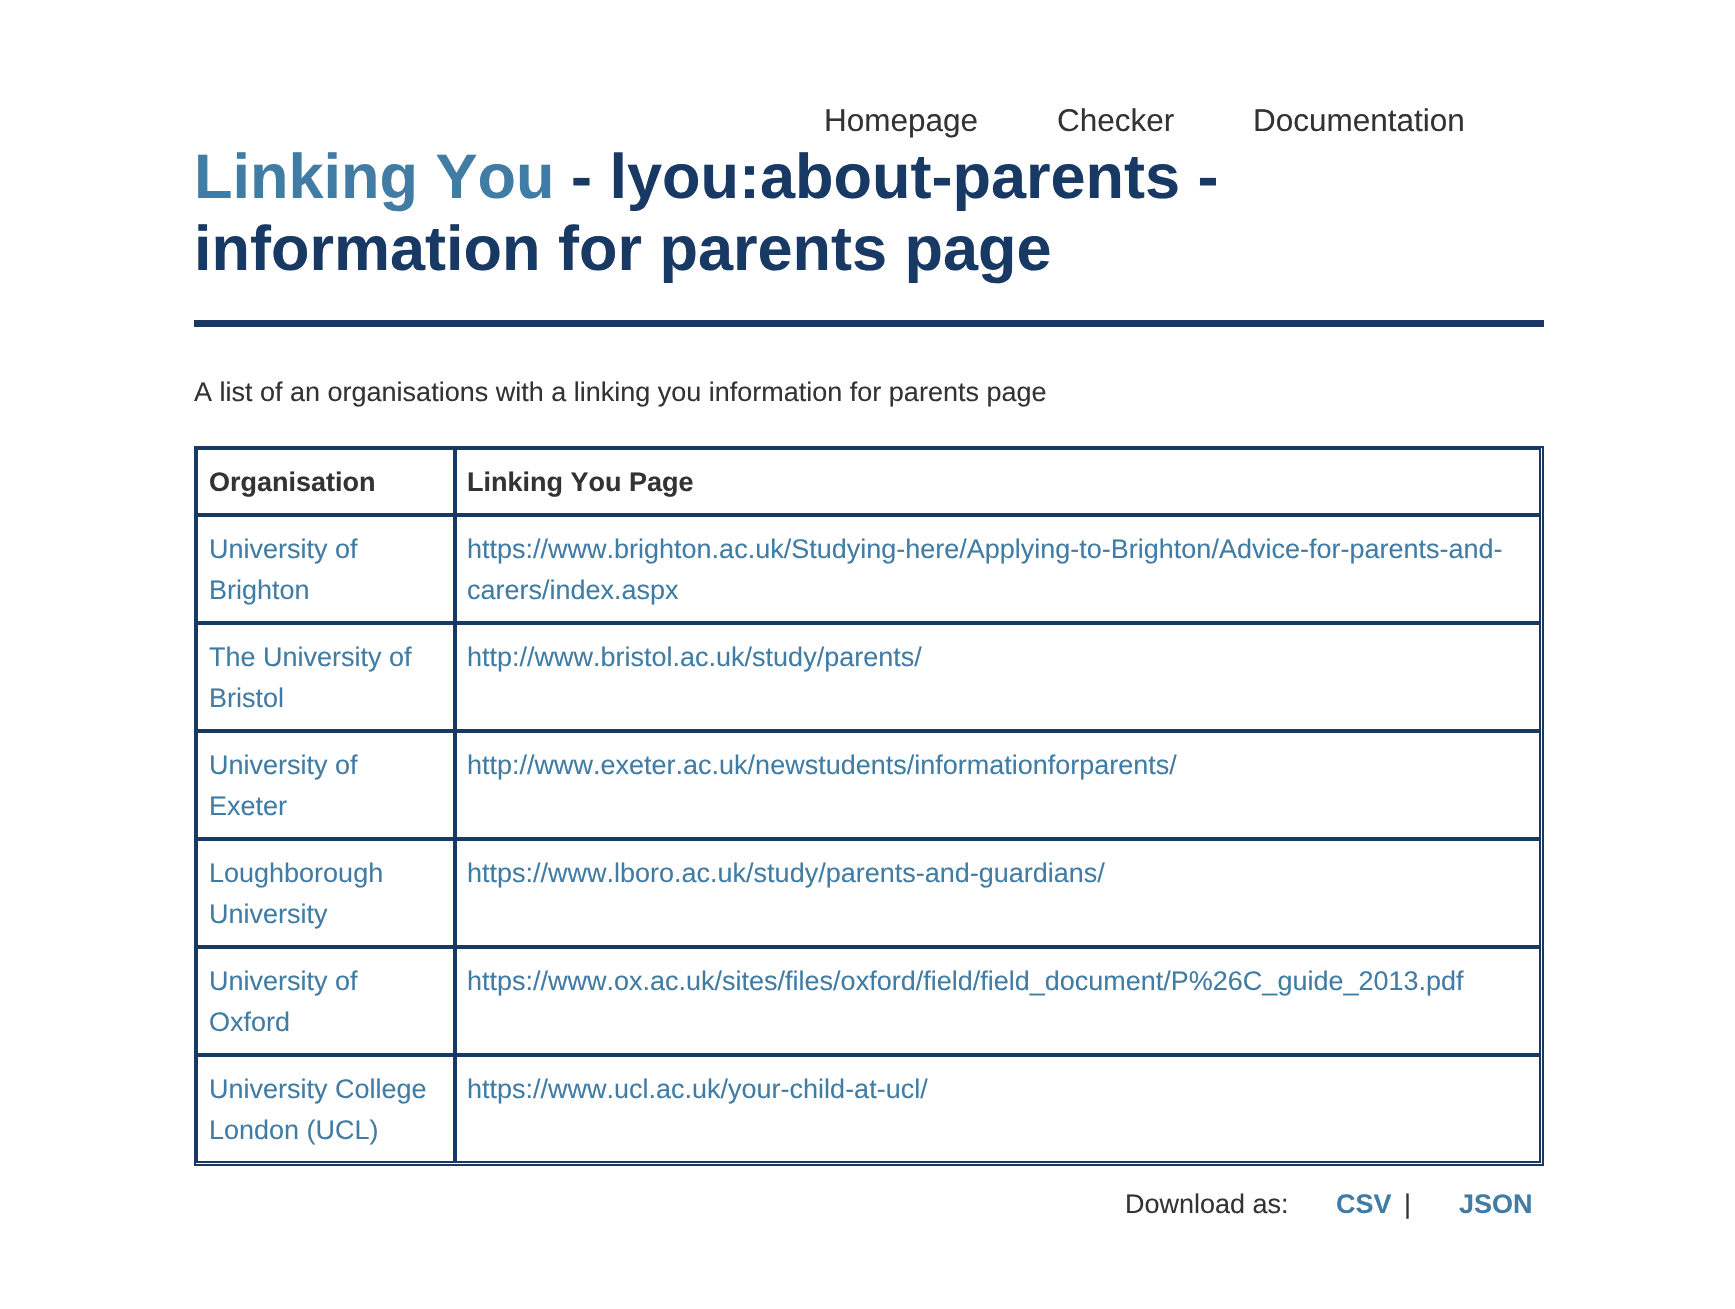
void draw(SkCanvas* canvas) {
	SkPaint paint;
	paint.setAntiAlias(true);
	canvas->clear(0xffffffff);
	SkFont f1(fontMgr->matchFamilyStyle("Liberation Sans", SkFontStyle::Normal()), 31.5);
	f1.setSubpixel(true);
	paint.setColor(0xff333333);
	canvas->drawString("Homepage", 824, 131, f1, paint);
	canvas->drawString("Checker", 1057, 131, f1, paint);
	canvas->drawString("Documentation", 1253, 131, f1, paint);
	paint.setColor(0xff193964);
	canvas->drawRect(SkRect::MakeXYWH(194, 320, 1350, 7), paint);
	SkFont f2(fontMgr->matchFamilyStyle("Liberation Sans", SkFontStyle::Bold()), 63);
	f2.setSubpixel(true);
	paint.setColor(0xff417ca5);
	canvas->drawString("Linking You", 194, 198, f2, paint);
	paint.setColor(0xff193965);
	canvas->drawString("- lyou:about-parents -", 571, 198, f2, paint);
	canvas->drawString("information for parents page", 194, 270, f2, paint);
	SkFont f3(fontMgr->matchFamilyStyle("Liberation Sans", SkFontStyle::Normal()), 27);
	f3.setSubpixel(true);
	paint.setColor(0xff333333);
	canvas->drawString("A list of an organisations with a linking you information for parents page", 194, 401, f3, paint);
	paint.setStroke(true);
	paint.setStrokeWidth(2);
	paint.setColor(0xff193965);
	canvas->drawRect(SkRect::MakeXYWH(195, 447, 1348, 718), paint);
	canvas->drawRect(SkRect::MakeXYWH(197, 449, 257, 65), paint);
	SkFont f4(fontMgr->matchFamilyStyle("Liberation Sans", SkFontStyle::Bold()), 27);
	f4.setSubpixel(true);
	paint.setStroke(false);
	paint.setColor(0xff333333);
	canvas->drawString("Organisation", 209, 491, f4, paint);
	paint.setStroke(true);
	paint.setColor(0xff193965);
	canvas->drawRect(SkRect::MakeXYWH(456, 449, 1084, 65), paint);
	paint.setStroke(false);
	paint.setColor(0xff333333);
	canvas->drawString("Linking You Page", 467, 491, f4, paint);
	paint.setStroke(true);
	paint.setColor(0xff193965);
	canvas->drawRect(SkRect::MakeXYWH(197, 516, 257, 106), paint);
	paint.setStroke(false);
	paint.setColor(0xff417ca5);
	canvas->drawString("University of", 209, 558, f3, paint);
	canvas->drawString("Brighton", 209, 599, f3, paint);
	paint.setStroke(true);
	paint.setColor(0xff193965);
	canvas->drawRect(SkRect::MakeXYWH(456, 516, 1084, 106), paint);
	paint.setStroke(false);
	paint.setColor(0xff417ca5);
	canvas->drawString("https://www.brighton.ac.uk/Studying-here/Applying-to-Brighton/Advice-for-parents-and-", 467, 558, f3, paint);
	canvas->drawString("carers/index.aspx", 467, 599, f3, paint);
	paint.setStroke(true);
	paint.setColor(0xff193965);
	canvas->drawRect(SkRect::MakeXYWH(197, 624, 257, 106), paint);
	paint.setStroke(false);
	paint.setColor(0xff417ca5);
	canvas->drawString("The University of", 209, 666, f3, paint);
	canvas->drawString("Bristol", 209, 707, f3, paint);
	paint.setStroke(true);
	paint.setColor(0xff193965);
	canvas->drawRect(SkRect::MakeXYWH(456, 624, 1084, 106), paint);
	paint.setStroke(false);
	paint.setColor(0xff417ca5);
	canvas->drawString("http://www.bristol.ac.uk/study/parents/", 467, 666, f3, paint);
	paint.setStroke(true);
	paint.setColor(0xff193965);
	canvas->drawRect(SkRect::MakeXYWH(197, 732, 257, 106), paint);
	paint.setStroke(false);
	paint.setColor(0xff417ca5);
	canvas->drawString("University of", 209, 774, f3, paint);
	canvas->drawString("Exeter", 209, 815, f3, paint);
	paint.setStroke(true);
	paint.setColor(0xff193965);
	canvas->drawRect(SkRect::MakeXYWH(456, 732, 1084, 106), paint);
	paint.setStroke(false);
	paint.setColor(0xff417ca5);
	canvas->drawString("http://www.exeter.ac.uk/newstudents/informationforparents/", 467, 774, f3, paint);
	paint.setStroke(true);
	paint.setColor(0xff193965);
	canvas->drawRect(SkRect::MakeXYWH(197, 840, 257, 106), paint);
	paint.setStroke(false);
	paint.setColor(0xff417ca5);
	canvas->drawString("Loughborough", 209, 882, f3, paint);
	canvas->drawString("University", 209, 923, f3, paint);
	paint.setStroke(true);
	paint.setColor(0xff193965);
	canvas->drawRect(SkRect::MakeXYWH(456, 840, 1084, 106), paint);
	paint.setStroke(false);
	paint.setColor(0xff417ca5);
	canvas->drawString("https://www.lboro.ac.uk/study/parents-and-guardians/", 467, 882, f3, paint);
	paint.setStroke(true);
	paint.setColor(0xff193965);
	canvas->drawRect(SkRect::MakeXYWH(197, 948, 257, 106), paint);
	paint.setStroke(false);
	paint.setColor(0xff417ca5);
	canvas->drawString("University of", 209, 990, f3, paint);
	canvas->drawString("Oxford", 209, 1031, f3, paint);
	paint.setStroke(true);
	paint.setColor(0xff193965);
	canvas->drawRect(SkRect::MakeXYWH(456, 948, 1084, 106), paint);
	paint.setStroke(false);
	paint.setColor(0xff417ca5);
	canvas->drawString("https://www.ox.ac.uk/sites/files/oxford/field/field_document/P%26C_guide_2013.pdf", 467, 990, f3, paint);
	paint.setStroke(true);
	paint.setColor(0xff193965);
	canvas->drawRect(SkRect::MakeXYWH(197, 1056, 257, 106), paint);
	paint.setStroke(false);
	paint.setColor(0xff417ca5);
	canvas->drawString("University College", 209, 1098, f3, paint);
	canvas->drawString("London (UCL)", 209, 1139, f3, paint);
	paint.setStroke(true);
	paint.setColor(0xff193965);
	canvas->drawRect(SkRect::MakeXYWH(456, 1056, 1084, 106), paint);
	paint.setStroke(false);
	paint.setColor(0xff417ca5);
	canvas->drawString("https://www.ucl.ac.uk/your-child-at-ucl/", 467, 1098, f3, paint);
	paint.setColor(0xff333333);
	canvas->drawString("Download as:", 1125, 1213, f3, paint);
	paint.setColor(0xff417ca5);
	canvas->drawString("CSV", 1336, 1213, f4, paint);
	paint.setColor(0xff333333);
	canvas->drawString("|", 1404, 1213, f3, paint);
	paint.setColor(0xff417ca5);
	canvas->drawString("JSON", 1459, 1213, f4, paint);
}
